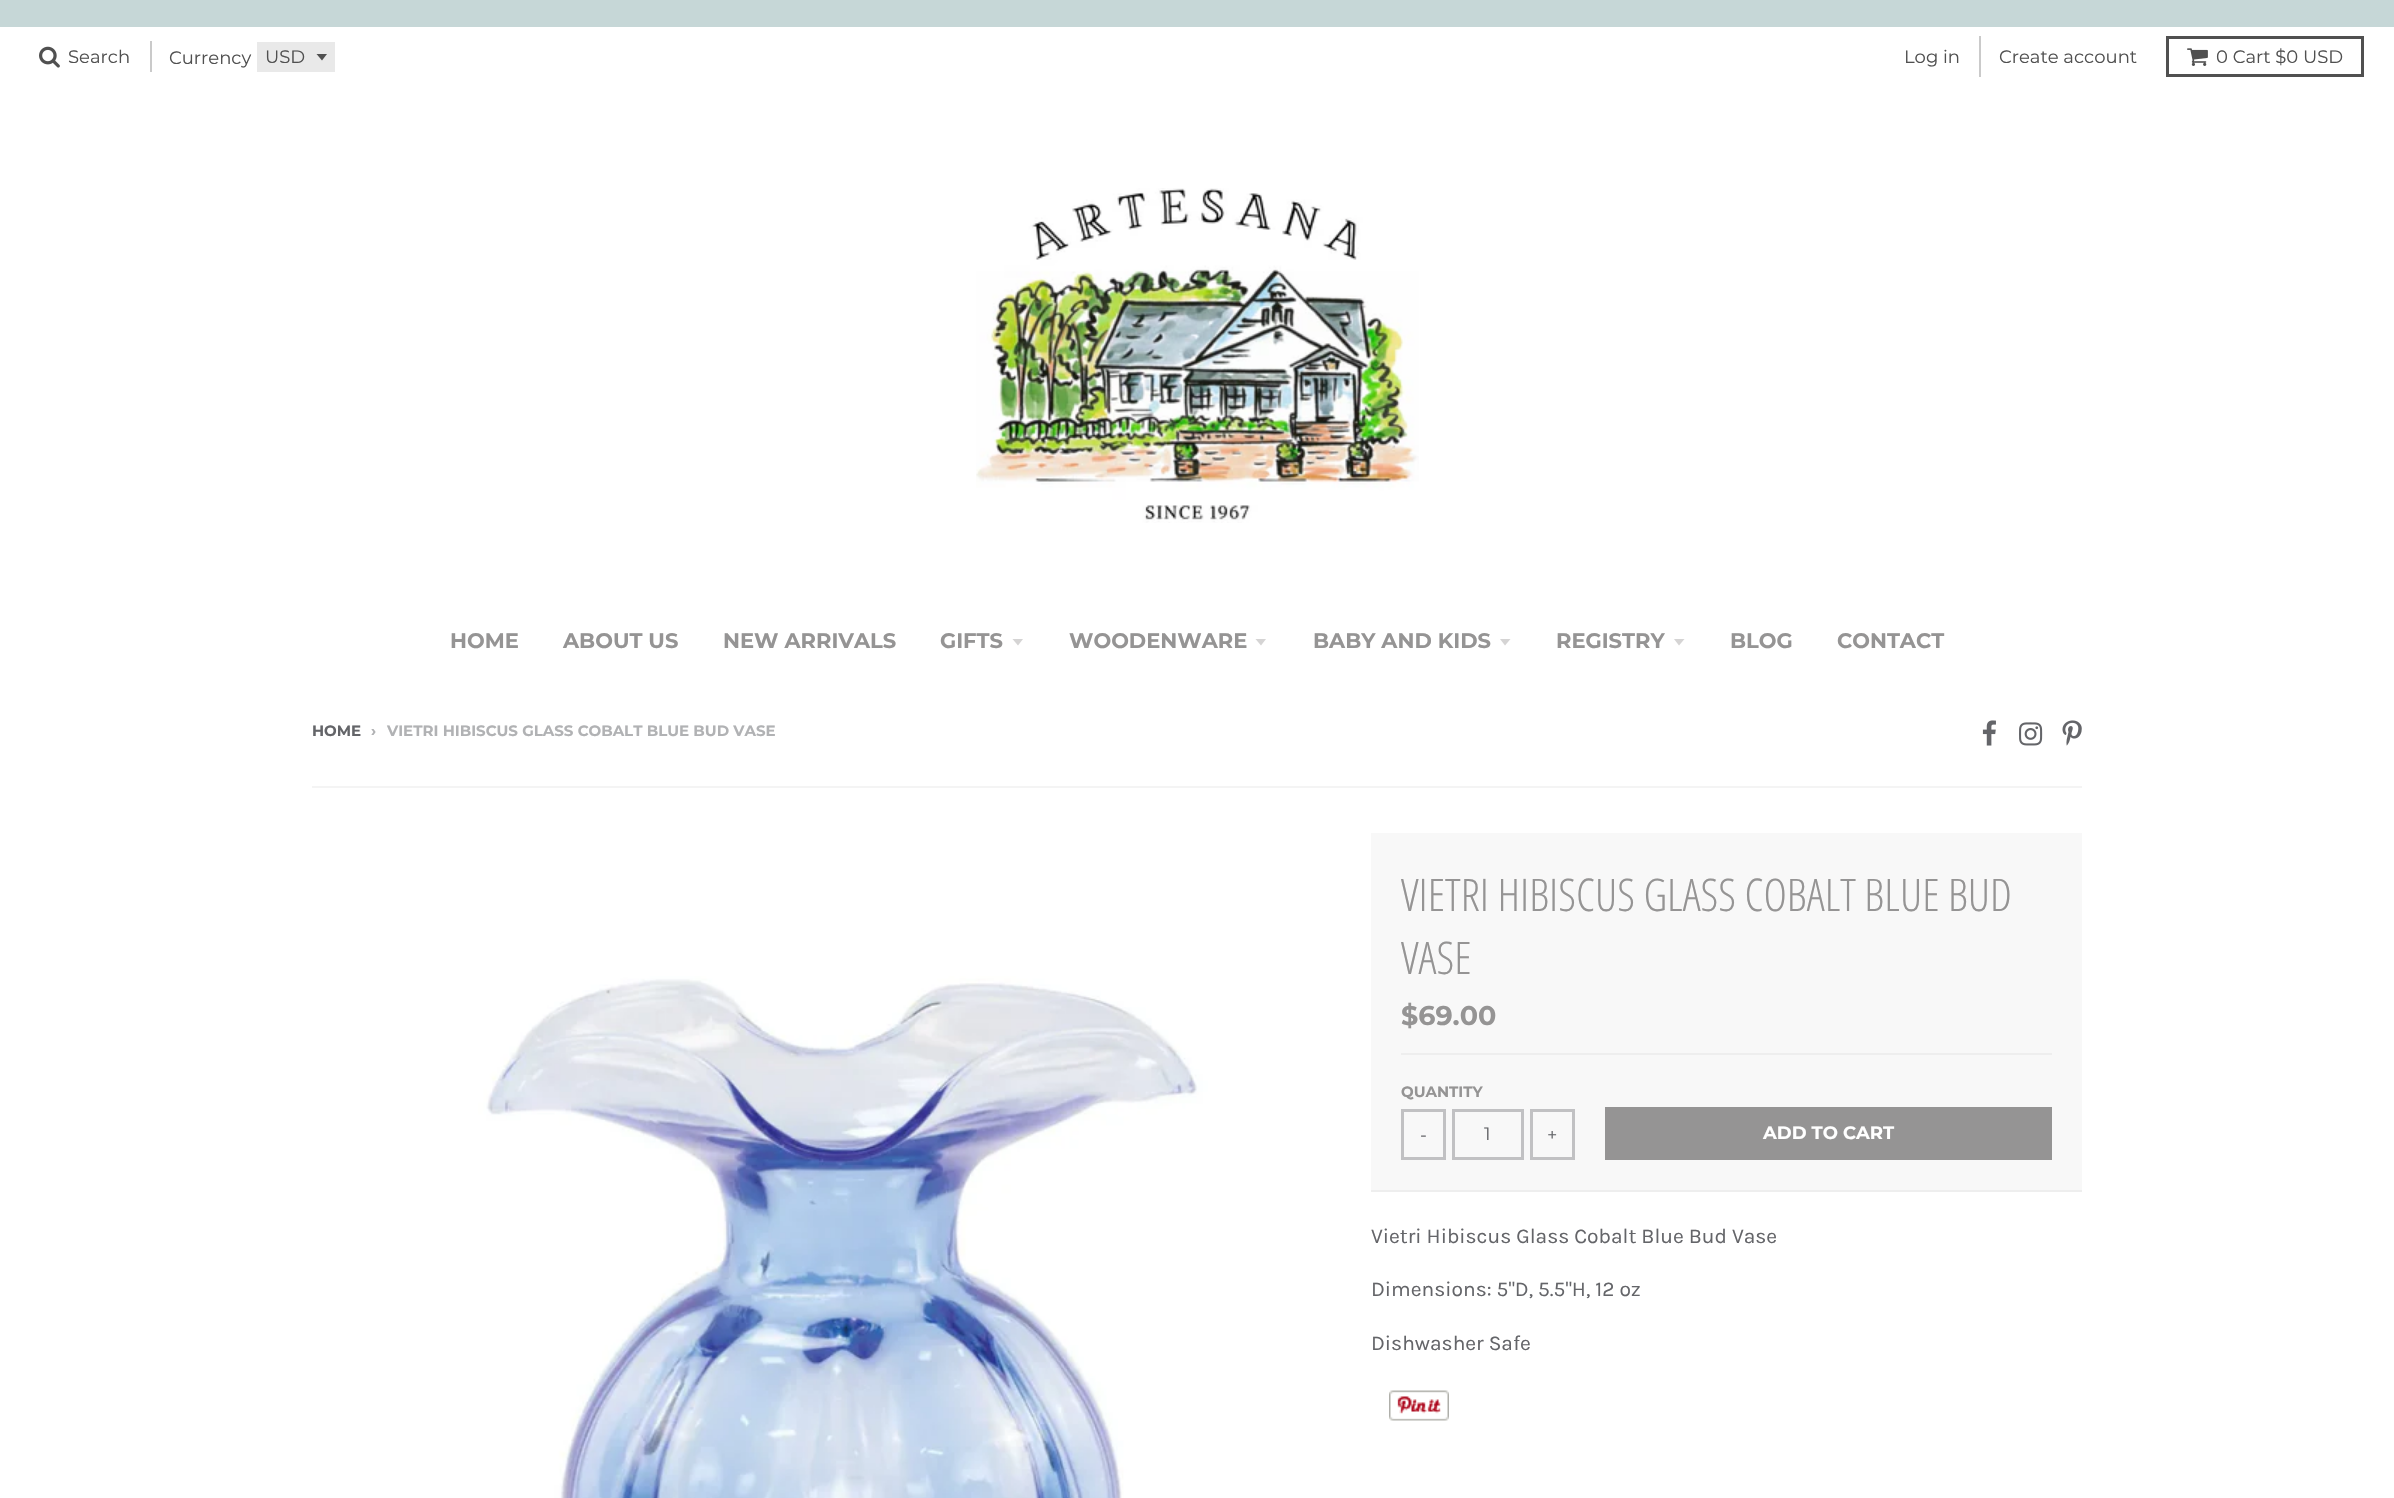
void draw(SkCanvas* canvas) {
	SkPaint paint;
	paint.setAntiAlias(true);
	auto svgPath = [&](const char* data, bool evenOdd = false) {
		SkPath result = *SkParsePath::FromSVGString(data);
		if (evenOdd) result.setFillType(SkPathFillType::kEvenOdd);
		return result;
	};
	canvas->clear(0xffffffff);
	paint.setColor(0xffc6d7d7);
	canvas->drawRect(SkRect::MakeXYWH(0, 0, 2394, 27), paint);
	canvas->drawImageRect(SkImages::DeferredFromEncodedData(SkData::MakeFromFileName("img1.png")), SkRect::MakeXYWH(39, 46, 21, 22), SkSamplingOptions());
	SkFont f1(fontMgr->matchFamilyStyle("Montserrat", SkFontStyle::Normal()), 18);
	f1.setSubpixel(true);
	paint.setColor(0xff505050);
	canvas->drawString("Search", 68, 63, f1, paint);
	paint.setColor(0xffcacaca);
	canvas->drawRect(SkRect::MakeXYWH(150, 41, 2, 31), paint);
	paint.setColor(0xff505050);
	canvas->drawString("Currency", 169, 64, f1, paint);
	paint.setColor(0xffe9e9e9);
	canvas->drawRect(SkRect::MakeXYWH(257, 42, 78, 30), paint);
	paint.setColor(0xff505050);
	canvas->drawPath(svgPath("M316.5 54L322 60.5L327 54Z"), paint);
	canvas->drawString("USD", 265, 63, f1, paint);
	paint.setColor(0xffcacaca);
	canvas->drawRect(SkRect::MakeXYWH(1979, 36, 2, 41), paint);
	paint.setColor(0xff505050);
	canvas->drawString("Log in", 1904, 63, f1, paint);
	canvas->drawString("Create account", 1999, 63, f1, paint);
	paint.setStroke(true);
	paint.setStrokeWidth(3);
	canvas->drawRect(SkRect::MakeXYWH(2167.5, 37.5, 195, 38), paint);
	canvas->drawImageRect(SkImages::DeferredFromEncodedData(SkData::MakeFromFileName("img2.png")), SkRect::MakeXYWH(2187, 48, 21, 18), SkSamplingOptions());
	paint.setStroke(false);
	canvas->drawString("0 Cart $0 USD", 2216, 63, f1, paint);
	canvas->drawImageRect(SkImages::DeferredFromEncodedData(SkData::MakeFromFileName("img3.png")), SkRect::MakeXYWH(976, 188, 443, 335), SkSamplingOptions());
	SkFont f2(fontMgr->matchFamilyStyle("Montserrat", SkFontStyle::Bold()), 21);
	f2.setSubpixel(true);
	paint.setColor(0xff959494);
	canvas->drawString("HOME", 450, 648, f2, paint);
	canvas->drawString("ABOUT US", 563, 648, f2, paint);
	canvas->drawString("NEW ARRIVALS", 723, 648, f2, paint);
	canvas->drawString("GIFTS", 940, 648, f2, paint);
	paint.setColor(0xffd5d4d4);
	canvas->drawPath(svgPath("M1012.5 639L1018 645.5L1023 639Z"), paint);
	paint.setColor(0xff959494);
	canvas->drawString("WOODENWARE", 1069, 648, f2, paint);
	paint.setColor(0xffd5d4d4);
	canvas->drawPath(svgPath("M1255.5 639L1261 645.5L1266 639Z"), paint);
	paint.setColor(0xff959494);
	canvas->drawString("BABY AND KIDS", 1313, 648, f2, paint);
	paint.setColor(0xffd5d4d4);
	canvas->drawPath(svgPath("M1500 639L1505 645.5L1510.5 639Z"), paint);
	paint.setColor(0xff959494);
	canvas->drawString("REGISTRY", 1556, 648, f2, paint);
	paint.setColor(0xffd5d4d4);
	canvas->drawPath(svgPath("M1674 639L1679 645.5L1684.5 639Z"), paint);
	paint.setColor(0xff959494);
	canvas->drawString("BLOG", 1730, 648, f2, paint);
	canvas->drawString("CONTACT", 1837, 648, f2, paint);
	SkFont f3(fontMgr->matchFamilyStyle("Montserrat", SkFontStyle::Bold()), 15);
	f3.setSubpixel(true);
	paint.setColor(0xff646569);
	canvas->drawString("HOME", 312, 736, f3, paint);
	paint.setColor(0xffb1b2b4);
	canvas->drawString("›", 371, 736, f3, paint);
	canvas->drawString("VIETRI HIBISCUS GLASS COBALT BLUE BUD VASE", 387, 736, f3, paint);
	canvas->drawImageRect(SkImages::DeferredFromEncodedData(SkData::MakeFromFileName("img4.png")), SkRect::MakeXYWH(1982, 720, 14, 26), SkSamplingOptions());
	canvas->drawImageRect(SkImages::DeferredFromEncodedData(SkData::MakeFromFileName("img5.png")), SkRect::MakeXYWH(2019, 722, 24, 24), SkSamplingOptions());
	canvas->drawImageRect(SkImages::DeferredFromEncodedData(SkData::MakeFromFileName("img6.png")), SkRect::MakeXYWH(2062, 720, 20, 26), SkSamplingOptions());
	paint.setColor(0xfff4f4f4);
	canvas->drawRect(SkRect::MakeXYWH(312, 786, 1770, 2), paint);
	canvas->drawImageRect(SkImages::DeferredFromEncodedData(SkData::MakeFromFileName("img7.png")), SkRect::MakeXYWH(312, 833, 1014, 665), SkSamplingOptions());
	paint.setColor(0xfff8f8f8);
	canvas->drawRect(SkRect::MakeXYWH(1371, 833, 711, 357), paint);
	paint.setColor(0xffeeeeee);
	canvas->drawRect(SkRect::MakeXYWH(1371, 1190, 711, 2), paint);
	SkFont f4(fontMgr->matchFamilyStyle("Open Sans Condensed", SkFontStyle(300, SkFontStyle::kNormal_Width, SkFontStyle::kUpright_Slant)), 45);
	f4.setSubpixel(true);
	paint.setColor(0xff959494);
	canvas->drawString("VIETRI HIBISCUS GLASS COBALT BLUE BUD", 1401, 911, f4, paint);
	canvas->drawString("VASE", 1401, 974, f4, paint);
	paint.setColor(0xffeeeeee);
	canvas->drawRect(SkRect::MakeXYWH(1401, 1053, 651, 2), paint);
	SkFont f5(fontMgr->matchFamilyStyle("Montserrat", SkFontStyle::Bold()), 27);
	f5.setSubpixel(true);
	paint.setColor(0xff959494);
	canvas->drawString("$69.00", 1401, 1025, f5, paint);
	canvas->drawString("QUANTITY", 1401, 1097, f3, paint);
	paint.setStroke(true);
	paint.setColor(0xffc1c1c3);
	canvas->drawRect(SkRect::MakeXYWH(1402.5, 1110.5, 42, 48), paint);
	paint.setStroke(false);
	paint.setColor(0xff646569);
	canvas->drawString("-", 1420, 1141, f1, paint);
	paint.setStroke(true);
	paint.setColor(0xffc1c1c3);
	canvas->drawRect(SkRect::MakeXYWH(1453.5, 1110.5, 69, 48), paint);
	paint.setStroke(false);
	paint.setColor(0xff646569);
	canvas->drawString("1", 1484, 1140, f1, paint);
	paint.setStroke(true);
	paint.setColor(0xffc1c1c3);
	canvas->drawRect(SkRect::MakeXYWH(1531.5, 1110.5, 42, 48), paint);
	paint.setStroke(false);
	paint.setColor(0xff646569);
	canvas->drawString("+", 1547, 1141, f1, paint);
	paint.setColor(0xff959494);
	canvas->drawRect(SkRect::MakeXYWH(1605, 1107, 447, 53), paint);
	SkFont f6(fontMgr->matchFamilyStyle("Montserrat", SkFontStyle::Bold()), 18);
	f6.setSubpixel(true);
	paint.setColor(0xffffffff);
	canvas->drawString("ADD TO CART", 1763, 1139, f6, paint);
	SkFont f7(fontMgr->matchFamilyStyle("Karla", SkFontStyle::Normal()), 21);
	f7.setSubpixel(true);
	paint.setColor(0xff646569);
	canvas->drawString("Vietri Hibiscus Glass Cobalt Blue Bud Vase", 1371, 1243, f7, paint);
	canvas->drawString("Dimensions: 5\"D, 5.5\"H, 12 oz", 1371, 1296, f7, paint);
	canvas->drawString("Dishwasher Safe", 1371, 1350, f7, paint);
	canvas->drawImageRect(SkImages::DeferredFromEncodedData(SkData::MakeFromFileName("img8.png")), SkRect::MakeXYWH(1389, 1390, 60, 31), SkSamplingOptions());
}
